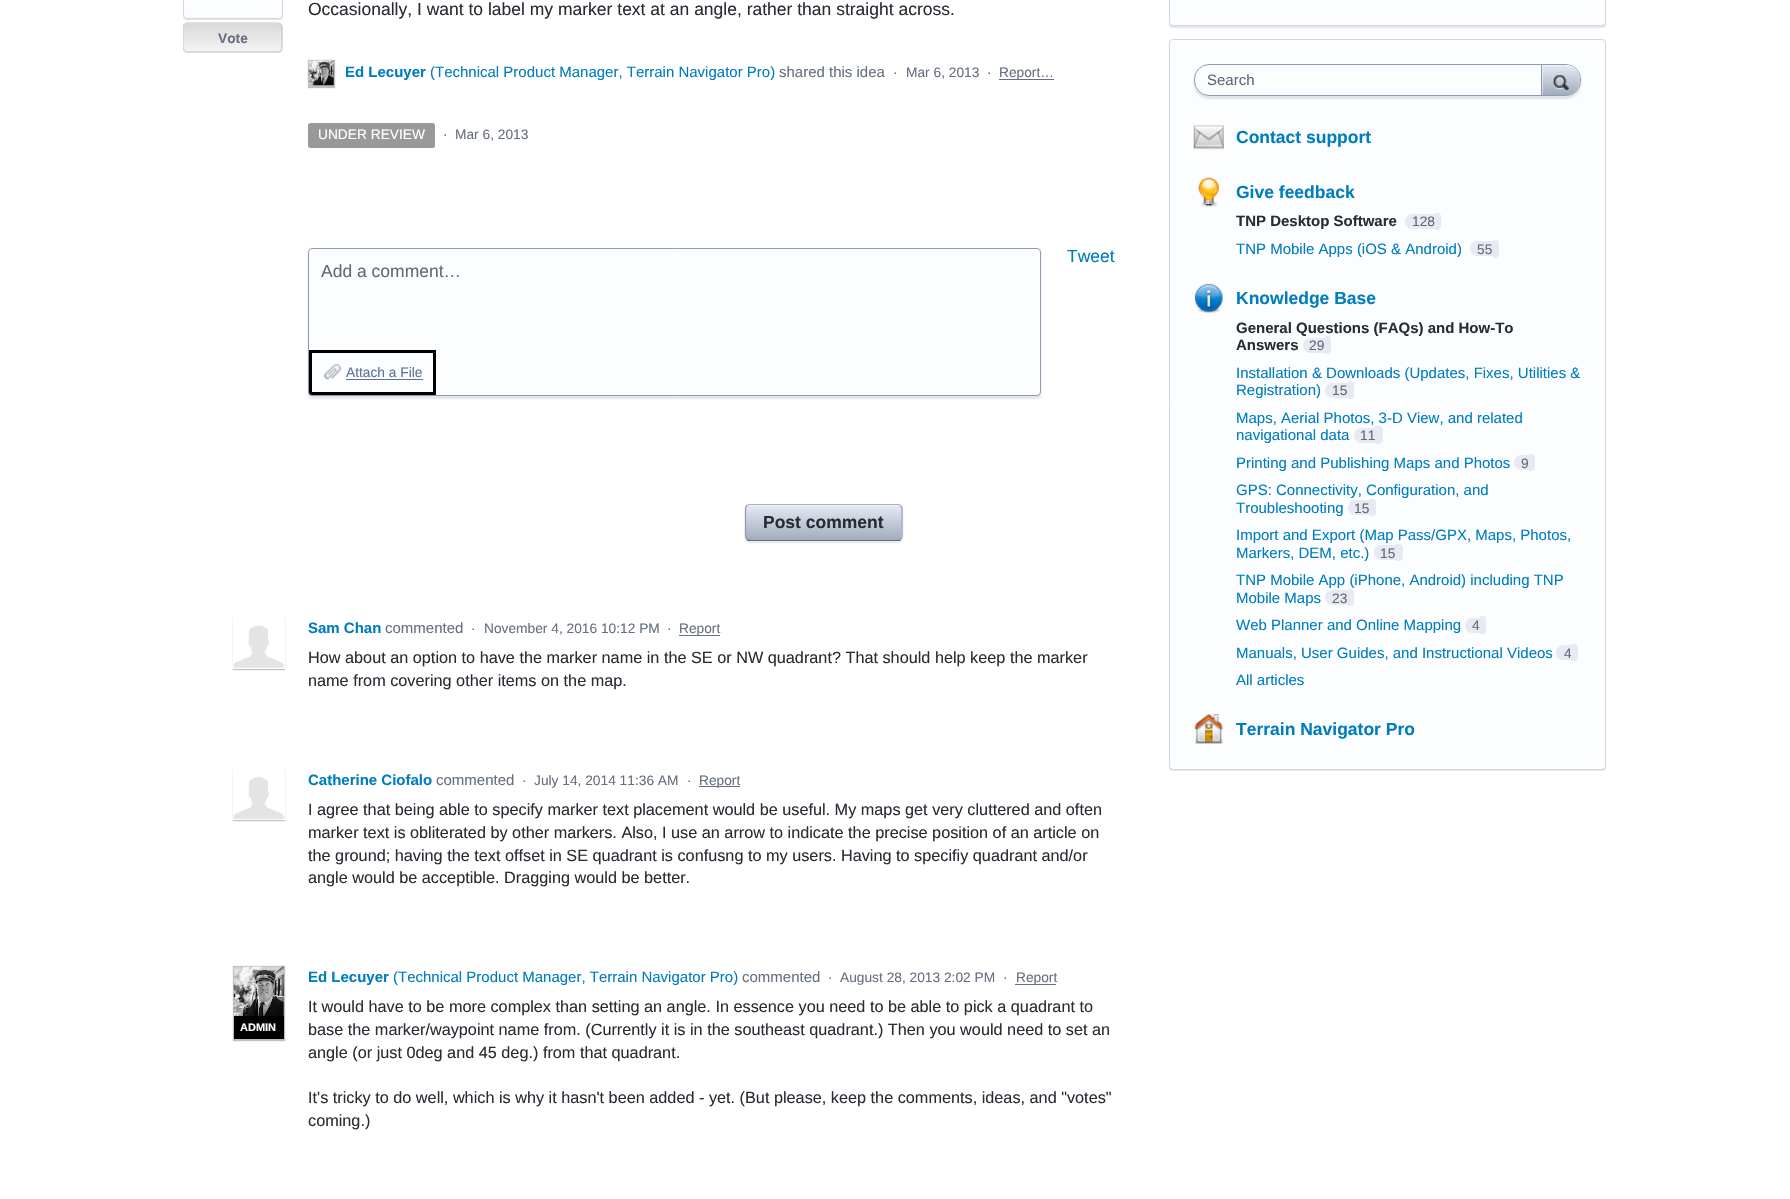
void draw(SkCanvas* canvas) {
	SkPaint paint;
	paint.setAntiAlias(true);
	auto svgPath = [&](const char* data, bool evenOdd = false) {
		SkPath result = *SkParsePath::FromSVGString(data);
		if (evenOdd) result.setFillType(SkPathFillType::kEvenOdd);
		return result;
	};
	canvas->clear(0xffffffff);
	SkFont f1(fontMgr->matchFamilyStyle("Liberation Sans", SkFontStyle::Normal()), 17.5);
	f1.setSubpixel(true);
	paint.setColor(0xff292c33);
	canvas->drawString("Occasionally, I want to label my marker text at an angle, rather than straight across.", 308, 15, f1, paint);
	paint.setColor(0x1a000000);
	paint.setMaskFilter(SkMaskFilter::MakeBlur(kNormal_SkBlurStyle, 0.5));
	canvas->drawRoundRect(SkRect::MakeXYWH(183, -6, 100, 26), 4, 4, paint);
	paint.setMaskFilter(nullptr);
	paint.setColor(0xfffcfdff);
	canvas->drawRoundRect(SkRect::MakeXYWH(183.5, -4.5, 99, 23), 3.5, 3.5, paint);
	paint.setStroke(true);
	paint.setStrokeWidth(1);
	paint.setColor(0xffcfd7e6);
	canvas->drawRoundRect(SkRect::MakeXYWH(183.5, -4.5, 99, 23), 3.5, 3.5, paint);
	canvas->save();
	canvas->clipPath(svgPath("M188 23H278C281 23 283 25 283 28V48C283 51 281 53 278 53H188C185 53 183 51 183 48V28C183 25 185 23 188 23Z"), true);
	paint.setStroke(false);
	{
		const SkColor colors[] = {0xffdadada, 0xfff3f3f3};
		const float stops[] = {0, 1};
		const SkPoint ends[] = {{184, -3.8}, {184, 24}};
		paint.setShader(SkGradientShader::MakeLinear(ends, colors, stops, 2, SkTileMode::kClamp));
		paint.setAlpha(255);
	}
	canvas->drawRect(SkRect::MakeXYWH(183, 23, 100, 1), paint);
	{
		const SkColor colors[] = {0xffdadada, 0xfff3f3f3};
		const float stops[] = {0, 1};
		const SkPoint ends[] = {{184, 24}, {184, 51}};
		paint.setShader(SkGradientShader::MakeLinear(ends, colors, stops, 2, SkTileMode::kClamp));
		paint.setAlpha(255);
	}
	canvas->drawRect(SkRect::MakeXYWH(183, 24, 100, 27), paint);
	{
		const SkColor colors[] = {0xffdadada, 0xfff3f3f3};
		const float stops[] = {0, 1};
		const SkPoint ends[] = {{184, 51}, {184, 79}};
		paint.setShader(SkGradientShader::MakeLinear(ends, colors, stops, 2, SkTileMode::kClamp));
		paint.setAlpha(255);
	}
	canvas->drawRect(SkRect::MakeXYWH(183, 51, 100, 2), paint);
	canvas->restore();
	paint.setStroke(true);
	paint.setStrokeWidth(1.2);
	paint.setShader(nullptr);
	paint.setColor(0xffc5c5c5);
	canvas->drawPath(svgPath("M184.5 24.5C185 23.5 186.5 23 187.5 23H277.5C278.5 23 280 23.5 280.5 24.5"), paint);
	paint.setColor(0xffcecece);
	canvas->drawPath(svgPath("M280.5 24.5C281.5 25 282 26.5 282 27.5V47.5C282 48.5 281.5 50 280.5 50.5"), paint);
	paint.setColor(0xffd9d9d9);
	canvas->drawPath(svgPath("M280.5 50.5C280 51.5 278.5 52 277.5 52H187.5C186.5 52 185 51.5 184.5 50.5"), paint);
	canvas->save();
	canvas->clipRect(SkRect::MakeXYWH(183, 0, 1425, 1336));
	paint.setColor(0xffcecece);
	canvas->drawPath(svgPath("M184.5 50.5C183.5 50 183 48.5 183 47.5V27.5C183 26.5 183.5 25 184.5 24.5"), paint);
	canvas->restore();
	SkFont f2(fontMgr->matchFamilyStyle("Liberation Sans", SkFontStyle::Bold()), 13.75);
	f2.setSubpixel(true);
	paint.setStroke(false);
	paint.setColor(0xff666f80);
	canvas->drawString("Vote", 218, 43, f2, paint);
	paint.setColor(0x40000000);
	paint.setMaskFilter(SkMaskFilter::MakeBlur(kNormal_SkBlurStyle, 0.5));
	canvas->drawRect(SkRect::MakeXYWH(308, 60, 27, 28), paint);
	paint.setMaskFilter(nullptr);
	canvas->drawImageRect(SkImages::DeferredFromEncodedData(SkData::MakeFromFileName("img1.png")), SkRect::MakeXYWH(308, 60, 26, 26), SkSamplingOptions());
	SkFont f3(fontMgr->matchFamilyStyle("Liberation Sans", SkFontStyle::Bold()), 15);
	f3.setSubpixel(true);
	paint.setColor(0xff007dbf);
	canvas->drawString("Ed Lecuyer", 345, 77, f3, paint);
	SkFont f4(fontMgr->matchFamilyStyle("Liberation Sans", SkFontStyle::Normal()), 15);
	f4.setSubpixel(true);
	canvas->drawString("(Technical Product Manager, Terrain Navigator Pro)", 430, 77, f4, paint);
	paint.setColor(0xff666f80);
	canvas->drawString("shared this idea", 779, 77, f4, paint);
	SkFont f5(fontMgr->matchFamilyStyle("Liberation Sans", SkFontStyle::Normal()), 13.75);
	f5.setSubpixel(true);
	paint.setColor(0xff616973);
	canvas->drawString("·", 893, 77, f5, paint);
	paint.setColor(0xff666f80);
	canvas->drawString("Mar 6, 2013", 906, 77, f5, paint);
	paint.setColor(0xff616973);
	canvas->drawString("·", 987, 77, f5, paint);
	paint.setColor(0xff666f80);
	canvas->drawRect(SkRect::MakeXYWH(999, 79, 55, 1), paint);
	canvas->drawString("Report…", 999, 77, f5, paint);
	paint.setColor(0xff999999);
	canvas->drawRoundRect(SkRect::MakeXYWH(308, 123, 127, 25), 2.5, 2.5, paint);
	paint.setColor(0xffffffff);
	canvas->drawString("UNDER REVIEW", 318, 139, f5, paint);
	paint.setColor(0xff616973);
	canvas->drawString("·", 443, 139, f5, paint);
	paint.setColor(0xff666f80);
	canvas->drawString("Mar 6, 2013", 455, 139, f5, paint);
	paint.setColor(0xff007dbf);
	canvas->drawString("Tweet", 1067, 262, f1, paint);
	paint.setColor(0x1a000000);
	paint.setMaskFilter(SkMaskFilter::MakeBlur(kNormal_SkBlurStyle, 1));
	canvas->drawRoundRect(SkRect::MakeXYWH(308, 250, 733, 149), 4, 4, paint);
	paint.setMaskFilter(nullptr);
	paint.setColor(0xfffcfdff);
	canvas->drawRoundRect(SkRect::MakeXYWH(308.5, 248.5, 732, 147), 3.5, 3.5, paint);
	paint.setStroke(true);
	paint.setStrokeWidth(1);
	paint.setColor(0xff8f9bb3);
	canvas->drawRoundRect(SkRect::MakeXYWH(308.5, 248.5, 732, 147), 3.5, 3.5, paint);
	paint.setStroke(false);
	paint.setColor(0xff616973);
	canvas->drawString("Add a comment…", 321, 277, f1, paint);
	canvas->drawImageRect(SkImages::DeferredFromEncodedData(SkData::MakeFromFileName("img2.png")), SkRect::MakeXYWH(323, 364, 19, 16), SkSamplingOptions());
	paint.setColor(0xff000000);
	canvas->drawPath(svgPath("M309 350V392C309 394 310 395 312 395H436V350ZM312 353V392H433V353Z", true), paint);
	paint.setColor(0xff5d7298);
	canvas->drawString("Attach a File", 346, 377, f5, paint);
	canvas->drawRect(SkRect::MakeXYWH(346, 379, 77, 1), paint);
	paint.setColor(0x1a000000);
	paint.setMaskFilter(SkMaskFilter::MakeBlur(kNormal_SkBlurStyle, 1));
	canvas->drawRoundRect(SkRect::MakeXYWH(745, 505, 158, 38), 5, 5, paint);
	paint.setMaskFilter(nullptr);
	{
		const SkColor colors[] = {0xffe6eaf2, 0xffa2acbf};
		const float stops[] = {0, 1};
		const SkPoint ends[] = {{746, 505}, {746, 540}};
		paint.setShader(SkGradientShader::MakeLinear(ends, colors, stops, 2, SkTileMode::kClamp));
		paint.setAlpha(255);
	}
	canvas->drawRoundRect(SkRect::MakeXYWH(746, 505, 155, 35), 4, 4, paint);
	paint.setShader(nullptr);
	paint.setColor(0x80ffffff);
	canvas->drawPath(svgPath("M750 506H898C900 506 901 508 901 510C901 508 900 506 898 505H749C747 506 746 508 746 510C746 508 748 506 750 506Z"), paint);
	paint.setStroke(true);
	paint.setStrokeWidth(1.2);
	paint.setColor(0xffa3b1cc);
	canvas->drawPath(svgPath("M747 505.5C747.5 505 749 504.5 750 504.5H897.5C898.5 504.5 900 505 900.5 505.5"), paint);
	paint.setColor(0xff8f9bb3);
	canvas->drawPath(svgPath("M900.5 505.5C901.5 506.5 902 507.5 902 509V536C902 537.5 901.5 538.5 900.5 539.5"), paint);
	paint.setColor(0xff666f80);
	canvas->drawPath(svgPath("M900.5 539.5C900 540 898.5 540.5 897.5 540.5H750C749 540.5 747.5 540 747 539.5"), paint);
	paint.setColor(0xff8f9bb3);
	canvas->drawPath(svgPath("M747 539.5C746 538.5 745.5 537.5 745.5 536V509C745.5 507.5 746 506.5 747 505.5"), paint);
	SkFont f6(fontMgr->matchFamilyStyle("Liberation Sans", SkFontStyle::Bold()), 17.5);
	f6.setSubpixel(true);
	paint.setStroke(false);
	paint.setColor(0xff292c33);
	canvas->drawString("Post comment", 763, 528, f6, paint);
	canvas->save();
	canvas->clipPath(svgPath("M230 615H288V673H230ZM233 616H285V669H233Z", true), true);
	paint.setColor(0x40000000);
	paint.setMaskFilter(SkMaskFilter::MakeBlur(kNormal_SkBlurStyle, 0.5));
	canvas->drawRect(SkRect::MakeXYWH(233, 618, 52, 52), paint);
	paint.setMaskFilter(nullptr);
	canvas->restore();
	paint.setStroke(true);
	paint.setStrokeWidth(1);
	paint.setColor(0xffffffff);
	canvas->drawRect(SkRect::MakeXYWH(233.5, 616.5, 51, 52), paint);
	canvas->drawImageRect(SkImages::DeferredFromEncodedData(SkData::MakeFromFileName("img3.png")), SkRect::MakeXYWH(233, 625, 51, 43), SkSamplingOptions());
	paint.setStroke(false);
	paint.setColor(0xff007dbf);
	canvas->drawString("Sam Chan", 308, 633, f3, paint);
	paint.setColor(0xff666f80);
	canvas->drawString("commented", 385, 633, f4, paint);
	paint.setColor(0xff616973);
	canvas->drawString("·", 471, 633, f5, paint);
	paint.setColor(0xff666f80);
	canvas->drawString("November 4, 2016 10:12 PM", 484, 633, f5, paint);
	paint.setColor(0xff616973);
	canvas->drawString("·", 667, 633, f5, paint);
	paint.setColor(0xff666f80);
	canvas->drawRect(SkRect::MakeXYWH(679, 635, 41, 1), paint);
	canvas->drawString("Report", 679, 633, f5, paint);
	SkFont f7(fontMgr->matchFamilyStyle("Liberation Sans", SkFontStyle::Normal()), 16.25);
	f7.setSubpixel(true);
	paint.setColor(0xff292c33);
	canvas->drawString("How about an option to have the marker name in the SE or NW quadrant? That should help keep the marker", 308, 663, f7, paint);
	canvas->drawString("name from covering other items on the map.", 308, 686, f7, paint);
	canvas->save();
	canvas->clipPath(svgPath("M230 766H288V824H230ZM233 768H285V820H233Z", true), true);
	paint.setColor(0x40000000);
	paint.setMaskFilter(SkMaskFilter::MakeBlur(kNormal_SkBlurStyle, 0.5));
	canvas->drawRect(SkRect::MakeXYWH(233, 769, 52, 52), paint);
	paint.setMaskFilter(nullptr);
	canvas->restore();
	canvas->drawImageRect(SkImages::DeferredFromEncodedData(SkData::MakeFromFileName("img4.png")), SkRect::MakeXYWH(233, 777, 51, 42), SkSamplingOptions());
	paint.setColor(0xff007dbf);
	canvas->drawString("Catherine Ciofalo", 308, 785, f3, paint);
	paint.setColor(0xff666f80);
	canvas->drawString("commented", 436, 785, f4, paint);
	paint.setColor(0xff616973);
	canvas->drawString("·", 522, 785, f5, paint);
	paint.setColor(0xff666f80);
	canvas->drawString("July 14, 2014 11:36 AM", 534, 785, f5, paint);
	paint.setColor(0xff616973);
	canvas->drawString("·", 687, 785, f5, paint);
	paint.setColor(0xff666f80);
	canvas->drawRect(SkRect::MakeXYWH(699, 786, 41, 1), paint);
	canvas->drawString("Report", 699, 785, f5, paint);
	paint.setColor(0xff292c33);
	canvas->drawString("I agree that being able to specify marker text placement would be useful. My maps get very cluttered and often", 308, 815, f7, paint);
	canvas->drawString("marker text is obliterated by other markers. Also, I use an arrow to indicate the precise position of an article on", 308, 838, f7, paint);
	canvas->drawString("the ground; having the text offset in SE quadrant is confusng to my users. Having to specifiy quadrant and/or", 308, 861, f7, paint);
	canvas->drawString("angle would be acceptible. Dragging would be better.", 308, 883, f7, paint);
	paint.setColor(0xff007dbf);
	canvas->drawString("Ed Lecuyer", 308, 982, f3, paint);
	canvas->drawString("(Technical Product Manager, Terrain Navigator Pro)", 393, 982, f4, paint);
	paint.setColor(0x40000000);
	paint.setMaskFilter(SkMaskFilter::MakeBlur(kNormal_SkBlurStyle, 0.5));
	canvas->drawRect(SkRect::MakeXYWH(233, 966, 52, 75), paint);
	paint.setMaskFilter(nullptr);
	canvas->drawImageRect(SkImages::DeferredFromEncodedData(SkData::MakeFromFileName("img5.png")), SkRect::MakeXYWH(233, 966, 51, 51), SkSamplingOptions());
	paint.setColor(0xff000000);
	canvas->drawRect(SkRect::MakeXYWH(234, 1016, 50, 23), paint);
	SkFont f8(fontMgr->matchFamilyStyle("Liberation Sans", SkFontStyle::Bold()), 11);
	f8.setSubpixel(true);
	paint.setColor(0xffffffff);
	canvas->drawString("ADMIN", 240, 1031, f8, paint);
	paint.setColor(0xff666f80);
	canvas->drawString("commented", 742, 982, f4, paint);
	paint.setColor(0xff616973);
	canvas->drawString("·", 828, 982, f5, paint);
	paint.setColor(0xff666f80);
	canvas->drawString("August 28, 2013 2:02 PM", 840, 982, f5, paint);
	paint.setColor(0xff616973);
	canvas->drawString("·", 1003, 982, f5, paint);
	paint.setColor(0xff666f80);
	canvas->drawRect(SkRect::MakeXYWH(1015, 984, 41, 1), paint);
	canvas->drawString("Report", 1016, 982, f5, paint);
	paint.setColor(0xff292c33);
	canvas->drawString("It would have to be more complex than setting an angle. In essence you need to be able to pick a quadrant to", 308, 1012, f7, paint);
	canvas->drawString("base the marker/waypoint name from. (Currently it is in the southeast quadrant.) Then you would need to set an", 308, 1035, f7, paint);
	canvas->drawString("angle (or just 0deg and 45 deg.) from that quadrant.", 308, 1058, f7, paint);
	canvas->drawString("It's tricky to do well, which is why it hasn't been added - yet. (But please, keep the comments, ideas, and \"votes\"", 308, 1103, f7, paint);
	canvas->drawString("coming.)", 308, 1126, f7, paint);
	paint.setColor(0x1a000000);
	paint.setMaskFilter(SkMaskFilter::MakeBlur(kNormal_SkBlurStyle, 0.5));
	canvas->drawRoundRect(SkRect::MakeXYWH(1169, -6, 437, 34), 4, 4, paint);
	paint.setMaskFilter(nullptr);
	paint.setColor(0xfffcfdff);
	canvas->drawRoundRect(SkRect::MakeXYWH(1169.5, -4.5, 436, 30), 3.5, 3.5, paint);
	paint.setStroke(true);
	paint.setColor(0xffcfd7e6);
	canvas->drawRoundRect(SkRect::MakeXYWH(1169.5, -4.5, 436, 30), 3.5, 3.5, paint);
	paint.setStroke(false);
	paint.setColor(0x1a000000);
	paint.setMaskFilter(SkMaskFilter::MakeBlur(kNormal_SkBlurStyle, 0.5));
	canvas->drawRoundRect(SkRect::MakeXYWH(1169, 40, 437, 731), 4, 4, paint);
	paint.setMaskFilter(nullptr);
	paint.setColor(0xfffcfdff);
	canvas->drawRoundRect(SkRect::MakeXYWH(1169.5, 39.5, 436, 730), 3.5, 3.5, paint);
	paint.setStroke(true);
	paint.setColor(0xffcfd7e6);
	canvas->drawRoundRect(SkRect::MakeXYWH(1169.5, 39.5, 436, 730), 3.5, 3.5, paint);
	paint.setStroke(false);
	paint.setColor(0x1a000000);
	paint.setMaskFilter(SkMaskFilter::MakeBlur(kNormal_SkBlurStyle, 1));
	canvas->drawRoundRect(SkRect::MakeXYWH(1194, 66, 387, 33), 15, 15, paint);
	paint.setMaskFilter(nullptr);
	paint.setColor(0xfffcfdff);
	canvas->drawRoundRect(SkRect::MakeXYWH(1194.5, 64.5, 386, 31), 14.5, 14.5, paint);
	paint.setStroke(true);
	paint.setColor(0xff8f9bb3);
	canvas->drawRoundRect(SkRect::MakeXYWH(1194.5, 64.5, 386, 31), 14.5, 14.5, paint);
	paint.setStroke(false);
	paint.setColor(0xff616973);
	canvas->drawString("Search", 1207, 85, f4, paint);
	canvas->save();
	canvas->clipRect(SkRect::MakeXYWH(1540, 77, 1, 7));
	paint.setColor(0x1a000000);
	paint.setMaskFilter(SkMaskFilter::MakeBlur(kNormal_SkBlurStyle, 1));
	canvas->drawRoundRect(SkRect::MakeXYWH(1541, 65, 40, 31), 15, 15, paint);
	paint.setMaskFilter(nullptr);
	canvas->restore();
	{
		const SkColor colors[] = {0xffe6eaf2, 0xffa2acbf};
		const float stops[] = {0, 1};
		const SkPoint ends[] = {{1543, 65}, {1543, 95}};
		paint.setShader(SkGradientShader::MakeLinear(ends, colors, stops, 2, SkTileMode::kClamp));
		paint.setAlpha(255);
	}
	canvas->drawPath(svgPath("M1542.5 65V95H1558C1562.5 95 1567.5 96 1571.5 94C1585 87 1582 65 1566 65Z"), paint);
	paint.setShader(nullptr);
	paint.setColor(0x80ffffff);
	canvas->drawPath(svgPath("M1542.5 65H1566C1573.5 65 1580 71.5 1580 79V80C1580 72 1574 66 1566 66H1542.5Z"), paint);
	paint.setColor(0xff8f9bb3);
	canvas->drawPath(svgPath("M1580 80C1580 88 1574 95 1566 95C1574.5 95 1580 88 1580 80Z"), paint);
	canvas->drawRect(SkRect::MakeXYWH(1541, 65, 1, 30), paint);
	canvas->drawImageRect(SkImages::DeferredFromEncodedData(SkData::MakeFromFileName("img6.png")), SkRect::MakeXYWH(1553, 75, 16, 17), SkSamplingOptions());
	canvas->drawImageRect(SkImages::DeferredFromEncodedData(SkData::MakeFromFileName("img7.png")), SkRect::MakeXYWH(1193, 125, 31, 25), SkSamplingOptions());
	paint.setColor(0xff007dbf);
	canvas->drawString("Contact support", 1236, 143, f6, paint);
	canvas->drawImageRect(SkImages::DeferredFromEncodedData(SkData::MakeFromFileName("img8.png")), SkRect::MakeXYWH(1198, 177, 21, 30), SkSamplingOptions());
	canvas->drawString("Give feedback", 1236, 198, f6, paint);
	paint.setColor(0xff292c33);
	canvas->drawString("TNP Desktop Software", 1236, 226, f3, paint);
	paint.setColor(0xffe7eaf2);
	canvas->drawPath(svgPath("M1412.5 214H1435V229H1412.5C1408.5 229 1405 225.5 1405 221.5C1405 217.5 1408.5 214 1412.5 214Z"), paint);
	paint.setColor(0xff616973);
	canvas->drawString("128", 1412, 226, f5, paint);
	paint.setColor(0xffe7eaf2);
	canvas->drawPath(svgPath("M1435 213H1438C1439.5 213 1441 214.5 1441 216V227C1441 228.5 1439.5 230 1438 230H1435Z"), paint);
	paint.setColor(0xff007dbf);
	canvas->drawString("TNP Mobile Apps (iOS & Android)", 1236, 254, f4, paint);
	paint.setColor(0xffe7eaf2);
	canvas->drawPath(svgPath("M1477.5 241H1493V256H1477.5C1473.5 256 1470 252.5 1470 248.5C1470 244.5 1473.5 241 1477.5 241Z"), paint);
	paint.setColor(0xff616973);
	canvas->drawString("55", 1477, 254, f5, paint);
	paint.setColor(0xffe7eaf2);
	canvas->drawPath(svgPath("M1493 240H1496C1497.5 240 1499 241.5 1499 243V255C1499 256.5 1497.5 258 1496 258H1493Z"), paint);
	canvas->drawImageRect(SkImages::DeferredFromEncodedData(SkData::MakeFromFileName("img9.png")), SkRect::MakeXYWH(1194, 283, 29, 30), SkSamplingOptions());
	paint.setColor(0xff007dbf);
	canvas->drawString("Knowledge Base", 1236, 304, f6, paint);
	paint.setColor(0xff292c33);
	canvas->drawString("General Questions (FAQs) and How-To", 1236, 333, f3, paint);
	canvas->drawString("Answers", 1236, 350, f3, paint);
	paint.setColor(0xffe7eaf2);
	canvas->drawPath(svgPath("M1310.5 338H1325V353H1310.5C1306.5 353 1303 349.5 1303 345.5C1303 341.5 1306.5 338 1310.5 338Z"), paint);
	paint.setColor(0xff616973);
	canvas->drawString("29", 1309, 350, f5, paint);
	paint.setColor(0xffe7eaf2);
	canvas->drawPath(svgPath("M1325 336H1328C1329.5 336 1331 337.5 1331 339V351C1331 352.5 1329.5 354 1328 354H1325Z"), paint);
	paint.setColor(0xff007dbf);
	canvas->drawString("Installation & Downloads (Updates, Fixes, Utilities &", 1236, 378, f4, paint);
	canvas->drawString("Registration)", 1236, 395, f4, paint);
	paint.setColor(0xffe7eaf2);
	canvas->drawPath(svgPath("M1332.5 383H1348V398H1332.5C1328.5 398 1325 394.5 1325 390.5C1325 386.5 1328.5 383 1332.5 383Z"), paint);
	paint.setColor(0xff616973);
	canvas->drawString("15", 1332, 395, f5, paint);
	paint.setColor(0xffe7eaf2);
	canvas->drawPath(svgPath("M1348 381H1351C1352.5 381 1354 382.5 1354 384V396C1354 397.5 1352.5 399 1351 399H1348Z"), paint);
	paint.setColor(0xff007dbf);
	canvas->drawString("Maps, Aerial Photos, 3-D View, and related", 1236, 423, f4, paint);
	canvas->drawString("navigational data", 1236, 440, f4, paint);
	paint.setColor(0xffe7eaf2);
	canvas->drawPath(svgPath("M1361.5 428H1375V443H1361.5C1357.5 443 1354 439.5 1354 435.5C1354 431.5 1357.5 428 1361.5 428Z"), paint);
	paint.setColor(0xff616973);
	canvas->drawString("11", 1360, 440, f5, paint);
	paint.setColor(0xffe7eaf2);
	canvas->drawPath(svgPath("M1375 426H1379C1381 426 1383 428 1383 430V440C1383 442 1381 444 1379 444H1375Z"), paint);
	paint.setColor(0xff007dbf);
	canvas->drawString("Printing and Publishing Maps and Photos", 1236, 468, f4, paint);
	paint.setColor(0xffe7eaf2);
	canvas->drawPath(svgPath("M1521.5 455H1529V470H1521.5C1517.5 470 1514 466.5 1514 462.5C1514 458.5 1517.5 455 1521.5 455Z"), paint);
	paint.setColor(0xff616973);
	canvas->drawString("9", 1521, 468, f5, paint);
	paint.setColor(0xffe7eaf2);
	canvas->drawPath(svgPath("M1529 454H1532C1533.5 454 1535 455.5 1535 457V468C1535 469.5 1533.5 471 1532 471H1529Z"), paint);
	paint.setColor(0xff007dbf);
	canvas->drawString("GPS: Connectivity, Configuration, and", 1236, 495, f4, paint);
	canvas->drawString("Troubleshooting", 1236, 513, f4, paint);
	paint.setColor(0xffe7eaf2);
	canvas->drawPath(svgPath("M1355.5 500H1370V515H1355.5C1351.5 515 1348 511.5 1348 507.5C1348 503.5 1351.5 500 1355.5 500Z"), paint);
	paint.setColor(0xff616973);
	canvas->drawString("15", 1354, 513, f5, paint);
	paint.setColor(0xffe7eaf2);
	canvas->drawPath(svgPath("M1370 499H1373C1374.5 499 1376 500.5 1376 502V513C1376 514.5 1374.5 516 1373 516H1370Z"), paint);
	paint.setColor(0xff007dbf);
	canvas->drawString("Import and Export (Map Pass/GPX, Maps, Photos,", 1236, 540, f4, paint);
	canvas->drawString("Markers, DEM, etc.)", 1236, 558, f4, paint);
	paint.setColor(0xffe7eaf2);
	canvas->drawPath(svgPath("M1381.5 545H1395V560H1381.5C1377.5 560 1374 556.5 1374 552.5C1374 548.5 1377.5 545 1381.5 545Z"), paint);
	paint.setColor(0xff616973);
	canvas->drawString("15", 1380, 558, f5, paint);
	paint.setColor(0xffe7eaf2);
	canvas->drawPath(svgPath("M1395 544H1399C1401 544 1403 546 1403 548V557C1403 559 1401 561 1399 561H1395Z"), paint);
	paint.setColor(0xff007dbf);
	canvas->drawString("TNP Mobile App (iPhone, Android) including TNP", 1236, 585, f4, paint);
	canvas->drawString("Mobile Maps", 1236, 603, f4, paint);
	paint.setColor(0xffe7eaf2);
	canvas->drawPath(svgPath("M1332.5 590H1348V605H1332.5C1328.5 605 1325 601.5 1325 597.5C1325 593.5 1328.5 590 1332.5 590Z"), paint);
	paint.setColor(0xff616973);
	canvas->drawString("23", 1332, 603, f5, paint);
	paint.setColor(0xffe7eaf2);
	canvas->drawPath(svgPath("M1348 589H1351C1352.5 589 1354 590.5 1354 592V603C1354 604.5 1352.5 606 1351 606H1348Z"), paint);
	paint.setColor(0xff007dbf);
	canvas->drawString("Web Planner and Online Mapping", 1236, 630, f4, paint);
	paint.setColor(0xffe7eaf2);
	canvas->drawPath(svgPath("M1472.5 618H1480V633H1472.5C1468.5 633 1465 629.5 1465 625.5C1465 621.5 1468.5 618 1472.5 618Z"), paint);
	paint.setColor(0xff616973);
	canvas->drawString("4", 1472, 630, f5, paint);
	paint.setColor(0xffe7eaf2);
	canvas->drawPath(svgPath("M1480 616H1483C1484.5 616 1486 617.5 1486 619V631C1486 632.5 1484.5 634 1483 634H1480Z"), paint);
	paint.setColor(0xff007dbf);
	canvas->drawString("Manuals, User Guides, and Instructional Videos", 1236, 658, f4, paint);
	paint.setColor(0xffe7eaf2);
	canvas->drawPath(svgPath("M1563.5 645H1571V660H1563.5C1559.5 660 1556 656.5 1556 652.5C1556 648.5 1559.5 645 1563.5 645Z"), paint);
	paint.setColor(0xff616973);
	canvas->drawString("4", 1564, 658, f5, paint);
	paint.setColor(0xffe7eaf2);
	canvas->drawPath(svgPath("M1571 644H1574.5C1576.5 644 1578 645.5 1578 647.5V657.5C1578 659.5 1576.5 661 1574.5 661H1571Z"), paint);
	paint.setColor(0xff007dbf);
	canvas->drawString("All articles", 1236, 685, f4, paint);
	canvas->drawImageRect(SkImages::DeferredFromEncodedData(SkData::MakeFromFileName("img10.png")), SkRect::MakeXYWH(1194, 714, 30, 30), SkSamplingOptions());
	canvas->drawString("Terrain Navigator Pro", 1236, 735, f6, paint);
}
